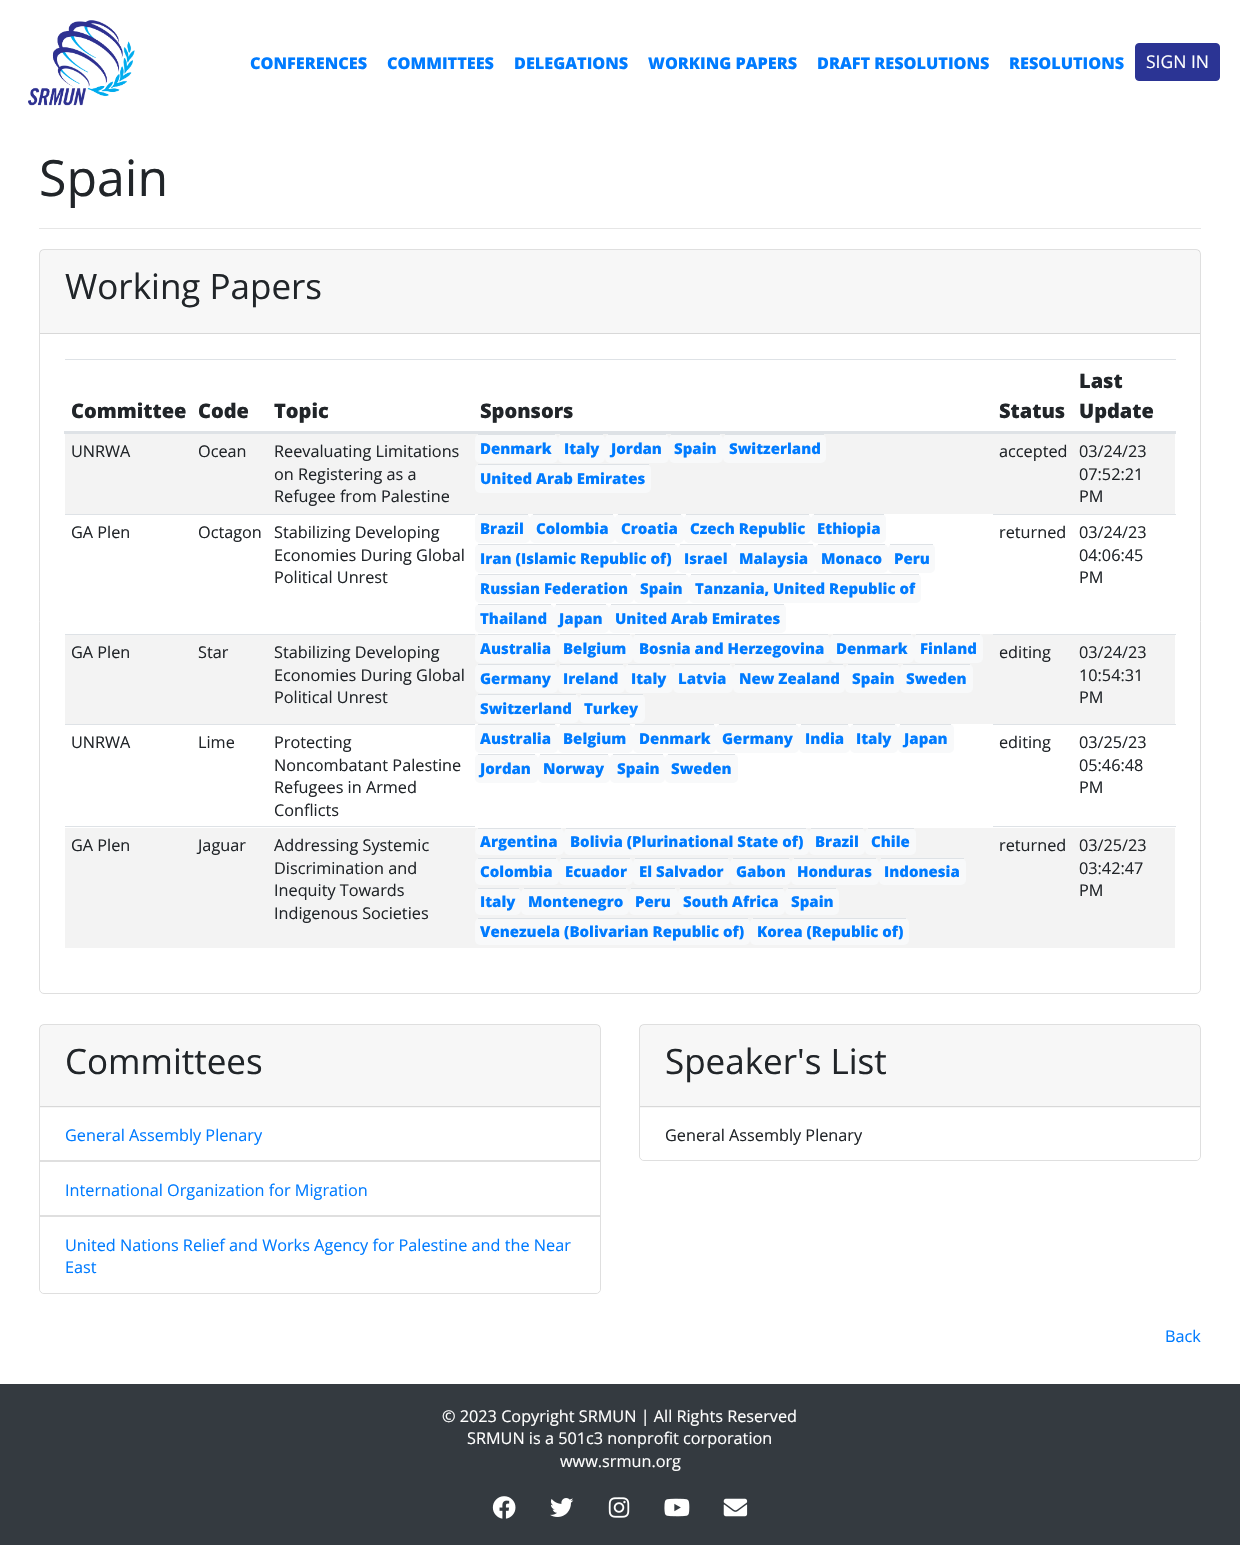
void draw(SkCanvas* canvas) {
	SkPaint paint;
	paint.setAntiAlias(true);
	auto svgPath = [&](const char* data, bool evenOdd = false) {
		SkPath result = *SkParsePath::FromSVGString(data);
		if (evenOdd) result.setFillType(SkPathFillType::kEvenOdd);
		return result;
	};
	canvas->clear(0xffffffff);
	canvas->drawImageRect(SkImages::DeferredFromEncodedData(SkData::MakeFromFileName("img1.png")), SkRect::MakeXYWH(28, 20, 107, 86), SkSamplingOptions());
	SkFont f1(fontMgr->matchFamilyStyle("Open Sans", SkFontStyle(800, SkFontStyle::kNormal_Width, SkFontStyle::kUpright_Slant)), 16.25);
	f1.setSubpixel(true);
	paint.setColor(0xff007bff);
	canvas->drawString("CONFERENCES", 250, 69, f1, paint);
	canvas->drawString("COMMITTEES", 387, 69, f1, paint);
	canvas->drawString("DELEGATIONS", 514, 69, f1, paint);
	canvas->drawString("WORKING PAPERS", 648, 69, f1, paint);
	canvas->drawString("DRAFT RESOLUTIONS", 817, 69, f1, paint);
	canvas->drawString("RESOLUTIONS", 1009, 69, f1, paint);
	paint.setColor(0xff2b3494);
	canvas->drawRoundRect(SkRect::MakeXYWH(1135.5, 43.5, 84, 37), 3.5, 3.5, paint);
	paint.setStroke(true);
	paint.setStrokeWidth(1);
	canvas->drawRoundRect(SkRect::MakeXYWH(1135.5, 43.5, 84, 37), 3.5, 3.5, paint);
	SkFont f2(fontMgr->matchFamilyStyle("Open Sans", SkFontStyle::Normal()), 17.5);
	f2.setSubpixel(true);
	paint.setStroke(false);
	paint.setColor(0xffffffff);
	canvas->drawString("SIGN IN", 1146, 68, f2, paint);
	SkFont f3(fontMgr->matchFamilyStyle("Open Sans", SkFontStyle::Normal()), 50);
	f3.setSubpixel(true);
	paint.setColor(0xff212529);
	canvas->drawString("Spain", 39, 196, f3, paint);
	paint.setColor(0xffe6e6e6);
	canvas->drawRect(SkRect::MakeXYWH(39, 228, 1162, 1), paint);
	paint.setStroke(true);
	paint.setColor(0xffdfdfdf);
	canvas->drawRoundRect(SkRect::MakeXYWH(39.5, 249.5, 1161, 744), 4.5, 4.5, paint);
	paint.setStroke(false);
	paint.setColor(0x08000000);
	canvas->drawRect(SkRect::MakeXYWH(40, 250, 1160, 83), paint);
	paint.setColor(0xffd8d8d8);
	canvas->drawRect(SkRect::MakeXYWH(40, 333, 1160, 1), paint);
	SkFont f4(fontMgr->matchFamilyStyle("Open Sans", SkFontStyle::Normal()), 35);
	f4.setSubpixel(true);
	paint.setColor(0xff212529);
	canvas->drawString("Working Papers", 65, 299, f4, paint);
	SkFont f5(fontMgr->matchFamilyStyle("Open Sans", SkFontStyle(800, SkFontStyle::kNormal_Width, SkFontStyle::kUpright_Slant)), 20);
	f5.setSubpixel(true);
	canvas->drawString("Committee", 71, 418, f5, paint);
	canvas->drawString("Code", 198, 418, f5, paint);
	canvas->drawString("Topic", 274, 418, f5, paint);
	canvas->drawString("Sponsors", 480, 418, f5, paint);
	canvas->drawString("Status", 999, 418, f5, paint);
	paint.setColor(0xffdee2e6);
	canvas->drawRect(SkRect::MakeXYWH(65, 359, 1111, 1), paint);
	canvas->drawRect(SkRect::MakeXYWH(64, 431, 1112, 3), paint);
	paint.setColor(0xff212529);
	canvas->drawString("Last", 1079, 388, f5, paint);
	canvas->drawString("Update", 1079, 418, f5, paint);
	paint.setColor(0xfff3f3f3);
	canvas->drawRect(SkRect::MakeXYWH(65, 434, 1110, 80), paint);
	SkFont f6(fontMgr->matchFamilyStyle("Open Sans", SkFontStyle::Normal()), 16.25);
	f6.setSubpixel(true);
	paint.setColor(0xff212529);
	canvas->drawString("UNRWA", 71, 457, f6, paint);
	canvas->drawString("Ocean", 198, 457, f6, paint);
	canvas->drawString("Reevaluating Limitations", 274, 457, f6, paint);
	canvas->drawString("on Registering as a", 274, 480, f6, paint);
	canvas->drawString("Refugee from Palestine", 274, 502, f6, paint);
	paint.setColor(0xfff8f9fa);
	canvas->drawRoundRect(SkRect::MakeXYWH(475, 434, 83, 29), 5, 5, paint);
	paint.setColor(0xffdee2e6);
	canvas->drawRect(SkRect::MakeXYWH(478, 434, 77, 1), paint);
	SkFont f7(fontMgr->matchFamilyStyle("Open Sans", SkFontStyle(800, SkFontStyle::kNormal_Width, SkFontStyle::kUpright_Slant)), 15);
	f7.setSubpixel(true);
	paint.setColor(0xff007bff);
	canvas->drawString("Denmark", 480, 454, f7, paint);
	paint.setColor(0xfff8f9fa);
	canvas->drawRoundRect(SkRect::MakeXYWH(558, 434, 47, 29), 5, 5, paint);
	paint.setColor(0xffdee2e6);
	canvas->drawRect(SkRect::MakeXYWH(560, 434, 43, 1), paint);
	paint.setColor(0xff007bff);
	canvas->drawString("Italy", 564, 454, f7, paint);
	paint.setColor(0xfff8f9fa);
	canvas->drawRoundRect(SkRect::MakeXYWH(605, 434, 64, 29), 5, 5, paint);
	paint.setColor(0xffdee2e6);
	canvas->drawRect(SkRect::MakeXYWH(608, 434, 58, 1), paint);
	paint.setColor(0xff007bff);
	canvas->drawString("Jordan", 611, 454, f7, paint);
	paint.setColor(0xfff8f9fa);
	canvas->drawRoundRect(SkRect::MakeXYWH(669, 434, 54, 29), 5, 5, paint);
	paint.setColor(0xffdee2e6);
	canvas->drawRect(SkRect::MakeXYWH(671, 434, 49, 1), paint);
	paint.setColor(0xff007bff);
	canvas->drawString("Spain", 674, 454, f7, paint);
	paint.setColor(0xfff8f9fa);
	canvas->drawRoundRect(SkRect::MakeXYWH(723, 434, 103, 29), 5, 5, paint);
	paint.setColor(0xffdee2e6);
	canvas->drawRect(SkRect::MakeXYWH(725, 434, 99, 1), paint);
	paint.setColor(0xff007bff);
	canvas->drawString("Switzerland", 729, 454, f7, paint);
	paint.setColor(0xff212529);
	canvas->drawString("accepted", 999, 457, f6, paint);
	canvas->drawString("03/24/23", 1079, 457, f6, paint);
	canvas->drawString("07:52:21", 1079, 480, f6, paint);
	canvas->drawString("PM", 1079, 502, f6, paint);
	paint.setColor(0xfff8f9fa);
	canvas->drawRoundRect(SkRect::MakeXYWH(475, 464, 176, 29), 5, 5, paint);
	paint.setColor(0xffdee2e6);
	canvas->drawRect(SkRect::MakeXYWH(478, 464, 171, 1), paint);
	paint.setColor(0xff007bff);
	canvas->drawString("United Arab Emirates", 480, 484, f7, paint);
	paint.setColor(0xff212529);
	canvas->drawString("GA Plen", 71, 538, f6, paint);
	canvas->drawString("Octagon", 198, 538, f6, paint);
	paint.setColor(0xffdee2e6);
	canvas->drawRect(SkRect::MakeXYWH(65, 514, 410, 1), paint);
	paint.setColor(0xff212529);
	canvas->drawString("Stabilizing Developing", 274, 538, f6, paint);
	canvas->drawString("Economies During Global", 274, 561, f6, paint);
	canvas->drawString("Political Unrest", 274, 583, f6, paint);
	paint.setColor(0xfff8f9fa);
	canvas->drawRoundRect(SkRect::MakeXYWH(475, 514, 55, 29), 5, 5, paint);
	paint.setColor(0xffdee2e6);
	canvas->drawRect(SkRect::MakeXYWH(478, 514, 50, 1), paint);
	paint.setColor(0xff007bff);
	canvas->drawString("Brazil", 480, 534, f7, paint);
	paint.setColor(0xfff8f9fa);
	canvas->drawRoundRect(SkRect::MakeXYWH(530, 514, 85, 29), 5, 5, paint);
	paint.setColor(0xffdee2e6);
	canvas->drawRect(SkRect::MakeXYWH(533, 514, 80, 1), paint);
	paint.setColor(0xff007bff);
	canvas->drawString("Colombia", 536, 534, f7, paint);
	paint.setColor(0xfff8f9fa);
	canvas->drawRoundRect(SkRect::MakeXYWH(615, 514, 69, 29), 5, 5, paint);
	paint.setColor(0xffdee2e6);
	canvas->drawRect(SkRect::MakeXYWH(618, 514, 63, 1), paint);
	paint.setColor(0xff007bff);
	canvas->drawString("Croatia", 621, 534, f7, paint);
	paint.setColor(0xfff8f9fa);
	canvas->drawRoundRect(SkRect::MakeXYWH(684, 514, 127, 29), 5, 5, paint);
	paint.setColor(0xffdee2e6);
	canvas->drawRect(SkRect::MakeXYWH(686, 514, 123, 1), paint);
	paint.setColor(0xff007bff);
	canvas->drawString("Czech Republic", 690, 534, f7, paint);
	paint.setColor(0xfff8f9fa);
	canvas->drawRoundRect(SkRect::MakeXYWH(811, 514, 75, 29), 5, 5, paint);
	paint.setColor(0xffdee2e6);
	canvas->drawRect(SkRect::MakeXYWH(814, 514, 70, 1), paint);
	paint.setColor(0xff007bff);
	canvas->drawString("Ethiopia", 817, 534, f7, paint);
	paint.setColor(0xff212529);
	canvas->drawString("returned", 999, 538, f6, paint);
	paint.setColor(0xffdee2e6);
	canvas->drawRect(SkRect::MakeXYWH(993, 514, 183, 1), paint);
	paint.setColor(0xff212529);
	canvas->drawString("03/24/23", 1079, 538, f6, paint);
	canvas->drawString("04:06:45", 1079, 561, f6, paint);
	canvas->drawString("PM", 1079, 583, f6, paint);
	paint.setColor(0xfff8f9fa);
	canvas->drawRoundRect(SkRect::MakeXYWH(475, 544, 203, 29), 5, 5, paint);
	paint.setColor(0xffdee2e6);
	canvas->drawRect(SkRect::MakeXYWH(478, 544, 197, 1), paint);
	paint.setColor(0xff007bff);
	canvas->drawString("Iran (Islamic Republic of)", 480, 564, f7, paint);
	paint.setColor(0xfff8f9fa);
	canvas->drawRoundRect(SkRect::MakeXYWH(678, 544, 56, 29), 5, 5, paint);
	paint.setColor(0xffdee2e6);
	canvas->drawRect(SkRect::MakeXYWH(680, 544, 51, 1), paint);
	paint.setColor(0xff007bff);
	canvas->drawString("Israel", 684, 564, f7, paint);
	paint.setColor(0xfff8f9fa);
	canvas->drawRoundRect(SkRect::MakeXYWH(734, 544, 81, 29), 5, 5, paint);
	paint.setColor(0xffdee2e6);
	canvas->drawRect(SkRect::MakeXYWH(736, 544, 77, 1), paint);
	paint.setColor(0xff007bff);
	canvas->drawString("Malaysia", 739, 564, f7, paint);
	paint.setColor(0xfff8f9fa);
	canvas->drawRoundRect(SkRect::MakeXYWH(815, 544, 73, 29), 5, 5, paint);
	paint.setColor(0xffdee2e6);
	canvas->drawRect(SkRect::MakeXYWH(818, 544, 67, 1), paint);
	paint.setColor(0xff007bff);
	canvas->drawString("Monaco", 821, 564, f7, paint);
	paint.setColor(0xfff8f9fa);
	canvas->drawRoundRect(SkRect::MakeXYWH(888, 544, 47, 29), 5, 5, paint);
	paint.setColor(0xffdee2e6);
	canvas->drawRect(SkRect::MakeXYWH(890, 544, 43, 1), paint);
	paint.setColor(0xff007bff);
	canvas->drawString("Peru", 894, 564, f7, paint);
	paint.setColor(0xfff8f9fa);
	canvas->drawRoundRect(SkRect::MakeXYWH(475, 574, 159, 29), 5, 5, paint);
	paint.setColor(0xffdee2e6);
	canvas->drawRect(SkRect::MakeXYWH(478, 574, 153, 1), paint);
	paint.setColor(0xff007bff);
	canvas->drawString("Russian Federation", 480, 594, f7, paint);
	paint.setColor(0xfff8f9fa);
	canvas->drawRoundRect(SkRect::MakeXYWH(634, 574, 55, 29), 5, 5, paint);
	paint.setColor(0xffdee2e6);
	canvas->drawRect(SkRect::MakeXYWH(636, 574, 50, 1), paint);
	paint.setColor(0xff007bff);
	canvas->drawString("Spain", 640, 594, f7, paint);
	paint.setColor(0xfff8f9fa);
	canvas->drawRoundRect(SkRect::MakeXYWH(689, 574, 232, 29), 5, 5, paint);
	paint.setColor(0xffdee2e6);
	canvas->drawRect(SkRect::MakeXYWH(691, 574, 228, 1), paint);
	paint.setColor(0xff007bff);
	canvas->drawString("Tanzania, United Republic of", 695, 594, f7, paint);
	paint.setColor(0xfff8f9fa);
	canvas->drawRoundRect(SkRect::MakeXYWH(475, 604, 79, 29), 5, 5, paint);
	paint.setColor(0xffdee2e6);
	canvas->drawRect(SkRect::MakeXYWH(478, 604, 73, 1), paint);
	paint.setColor(0xff007bff);
	canvas->drawString("Thailand", 480, 624, f7, paint);
	paint.setColor(0xfff8f9fa);
	canvas->drawRoundRect(SkRect::MakeXYWH(554, 604, 55, 29), 5, 5, paint);
	paint.setColor(0xffdee2e6);
	canvas->drawRect(SkRect::MakeXYWH(556, 604, 50, 1), paint);
	paint.setColor(0xff007bff);
	canvas->drawString("Japan", 559, 624, f7, paint);
	paint.setColor(0xfff8f9fa);
	canvas->drawRoundRect(SkRect::MakeXYWH(609, 604, 177, 29), 5, 5, paint);
	paint.setColor(0xffdee2e6);
	canvas->drawRect(SkRect::MakeXYWH(611, 604, 173, 1), paint);
	paint.setColor(0xff007bff);
	canvas->drawString("United Arab Emirates", 615, 624, f7, paint);
	paint.setColor(0xfff3f3f3);
	canvas->drawRect(SkRect::MakeXYWH(65, 634, 1110, 90), paint);
	paint.setColor(0xff212529);
	canvas->drawString("GA Plen", 71, 658, f6, paint);
	canvas->drawString("Star", 198, 658, f6, paint);
	paint.setColor(0xffdee2e6);
	canvas->drawRect(SkRect::MakeXYWH(65, 634, 410, 1), paint);
	paint.setColor(0xff212529);
	canvas->drawString("Stabilizing Developing", 274, 658, f6, paint);
	canvas->drawString("Economies During Global", 274, 681, f6, paint);
	canvas->drawString("Political Unrest", 274, 703, f6, paint);
	paint.setColor(0xfff8f9fa);
	canvas->drawRoundRect(SkRect::MakeXYWH(475, 634, 83, 29), 5, 5, paint);
	paint.setColor(0xffdee2e6);
	canvas->drawRect(SkRect::MakeXYWH(478, 634, 77, 1), paint);
	paint.setColor(0xff007bff);
	canvas->drawString("Australia", 480, 654, f7, paint);
	paint.setColor(0xfff8f9fa);
	canvas->drawRoundRect(SkRect::MakeXYWH(558, 634, 75, 29), 5, 5, paint);
	paint.setColor(0xffdee2e6);
	canvas->drawRect(SkRect::MakeXYWH(560, 634, 70, 1), paint);
	paint.setColor(0xff007bff);
	canvas->drawString("Belgium", 563, 654, f7, paint);
	paint.setColor(0xfff8f9fa);
	canvas->drawRoundRect(SkRect::MakeXYWH(633, 634, 197, 29), 5, 5, paint);
	paint.setColor(0xffdee2e6);
	canvas->drawRect(SkRect::MakeXYWH(635, 634, 193, 1), paint);
	paint.setColor(0xff007bff);
	canvas->drawString("Bosnia and Herzegovina", 639, 654, f7, paint);
	paint.setColor(0xfff8f9fa);
	canvas->drawRoundRect(SkRect::MakeXYWH(830, 634, 84, 29), 5, 5, paint);
	paint.setColor(0xffdee2e6);
	canvas->drawRect(SkRect::MakeXYWH(833, 634, 78, 1), paint);
	paint.setColor(0xff007bff);
	canvas->drawString("Denmark", 836, 654, f7, paint);
	paint.setColor(0xfff8f9fa);
	canvas->drawRoundRect(SkRect::MakeXYWH(914, 634, 69, 29), 5, 5, paint);
	paint.setColor(0xffdee2e6);
	canvas->drawRect(SkRect::MakeXYWH(916, 634, 64, 1), paint);
	paint.setColor(0xff007bff);
	canvas->drawString("Finland", 920, 654, f7, paint);
	paint.setColor(0xff212529);
	canvas->drawString("editing", 999, 658, f6, paint);
	paint.setColor(0xffdee2e6);
	canvas->drawRect(SkRect::MakeXYWH(993, 634, 183, 1), paint);
	paint.setColor(0xff212529);
	canvas->drawString("03/24/23", 1079, 658, f6, paint);
	canvas->drawString("10:54:31", 1079, 681, f6, paint);
	canvas->drawString("PM", 1079, 703, f6, paint);
	paint.setColor(0xfff8f9fa);
	canvas->drawRoundRect(SkRect::MakeXYWH(475, 664, 83, 29), 5, 5, paint);
	paint.setColor(0xffdee2e6);
	canvas->drawRect(SkRect::MakeXYWH(478, 664, 77, 1), paint);
	paint.setColor(0xff007bff);
	canvas->drawString("Germany", 480, 684, f7, paint);
	paint.setColor(0xfff8f9fa);
	canvas->drawRoundRect(SkRect::MakeXYWH(558, 664, 67, 29), 5, 5, paint);
	paint.setColor(0xffdee2e6);
	canvas->drawRect(SkRect::MakeXYWH(560, 664, 63, 1), paint);
	paint.setColor(0xff007bff);
	canvas->drawString("Ireland", 563, 684, f7, paint);
	paint.setColor(0xfff8f9fa);
	canvas->drawRoundRect(SkRect::MakeXYWH(625, 664, 48, 29), 5, 5, paint);
	paint.setColor(0xffdee2e6);
	canvas->drawRect(SkRect::MakeXYWH(628, 664, 42, 1), paint);
	paint.setColor(0xff007bff);
	canvas->drawString("Italy", 631, 684, f7, paint);
	paint.setColor(0xfff8f9fa);
	canvas->drawRoundRect(SkRect::MakeXYWH(673, 664, 60, 29), 5, 5, paint);
	paint.setColor(0xffdee2e6);
	canvas->drawRect(SkRect::MakeXYWH(675, 664, 55, 1), paint);
	paint.setColor(0xff007bff);
	canvas->drawString("Latvia", 678, 684, f7, paint);
	paint.setColor(0xfff8f9fa);
	canvas->drawRoundRect(SkRect::MakeXYWH(733, 664, 112, 29), 5, 5, paint);
	paint.setColor(0xffdee2e6);
	canvas->drawRect(SkRect::MakeXYWH(735, 664, 108, 1), paint);
	paint.setColor(0xff007bff);
	canvas->drawString("New Zealand", 739, 684, f7, paint);
	paint.setColor(0xfff8f9fa);
	canvas->drawRoundRect(SkRect::MakeXYWH(845, 664, 55, 29), 5, 5, paint);
	paint.setColor(0xffdee2e6);
	canvas->drawRect(SkRect::MakeXYWH(848, 664, 50, 1), paint);
	paint.setColor(0xff007bff);
	canvas->drawString("Spain", 852, 684, f7, paint);
	paint.setColor(0xfff8f9fa);
	canvas->drawRoundRect(SkRect::MakeXYWH(900, 664, 73, 29), 5, 5, paint);
	paint.setColor(0xffdee2e6);
	canvas->drawRect(SkRect::MakeXYWH(903, 664, 67, 1), paint);
	paint.setColor(0xff007bff);
	canvas->drawString("Sweden", 906, 684, f7, paint);
	paint.setColor(0xfff8f9fa);
	canvas->drawRoundRect(SkRect::MakeXYWH(475, 694, 104, 29), 5, 5, paint);
	paint.setColor(0xffdee2e6);
	canvas->drawRect(SkRect::MakeXYWH(478, 694, 98, 1), paint);
	paint.setColor(0xff007bff);
	canvas->drawString("Switzerland", 480, 714, f7, paint);
	paint.setColor(0xfff8f9fa);
	canvas->drawRoundRect(SkRect::MakeXYWH(579, 694, 66, 29), 5, 5, paint);
	paint.setColor(0xffdee2e6);
	canvas->drawRect(SkRect::MakeXYWH(581, 694, 62, 1), paint);
	paint.setColor(0xff007bff);
	canvas->drawString("Turkey", 584, 714, f7, paint);
	paint.setColor(0xff212529);
	canvas->drawString("UNRWA", 71, 748, f6, paint);
	canvas->drawString("Lime", 198, 748, f6, paint);
	paint.setColor(0xffdee2e6);
	canvas->drawRect(SkRect::MakeXYWH(65, 724, 410, 1), paint);
	paint.setColor(0xff212529);
	canvas->drawString("Protecting", 274, 748, f6, paint);
	canvas->drawString("Noncombatant Palestine", 274, 771, f6, paint);
	canvas->drawString("Refugees in Armed", 274, 793, f6, paint);
	canvas->drawString("Conflicts", 274, 816, f6, paint);
	paint.setColor(0xfff8f9fa);
	canvas->drawRoundRect(SkRect::MakeXYWH(475, 724, 83, 29), 5, 5, paint);
	paint.setColor(0xffdee2e6);
	canvas->drawRect(SkRect::MakeXYWH(478, 724, 77, 1), paint);
	paint.setColor(0xff007bff);
	canvas->drawString("Australia", 480, 744, f7, paint);
	paint.setColor(0xfff8f9fa);
	canvas->drawRoundRect(SkRect::MakeXYWH(558, 724, 75, 29), 5, 5, paint);
	paint.setColor(0xffdee2e6);
	canvas->drawRect(SkRect::MakeXYWH(560, 724, 70, 1), paint);
	paint.setColor(0xff007bff);
	canvas->drawString("Belgium", 563, 744, f7, paint);
	paint.setColor(0xfff8f9fa);
	canvas->drawRoundRect(SkRect::MakeXYWH(633, 724, 83, 29), 5, 5, paint);
	paint.setColor(0xffdee2e6);
	canvas->drawRect(SkRect::MakeXYWH(635, 724, 79, 1), paint);
	paint.setColor(0xff007bff);
	canvas->drawString("Denmark", 639, 744, f7, paint);
	paint.setColor(0xfff8f9fa);
	canvas->drawRoundRect(SkRect::MakeXYWH(716, 724, 83, 29), 5, 5, paint);
	paint.setColor(0xffdee2e6);
	canvas->drawRect(SkRect::MakeXYWH(719, 724, 77, 1), paint);
	paint.setColor(0xff007bff);
	canvas->drawString("Germany", 722, 744, f7, paint);
	paint.setColor(0xfff8f9fa);
	canvas->drawRoundRect(SkRect::MakeXYWH(799, 724, 51, 29), 5, 5, paint);
	paint.setColor(0xffdee2e6);
	canvas->drawRect(SkRect::MakeXYWH(801, 724, 47, 1), paint);
	paint.setColor(0xff007bff);
	canvas->drawString("India", 805, 744, f7, paint);
	paint.setColor(0xfff8f9fa);
	canvas->drawRoundRect(SkRect::MakeXYWH(850, 724, 48, 29), 5, 5, paint);
	paint.setColor(0xffdee2e6);
	canvas->drawRect(SkRect::MakeXYWH(853, 724, 42, 1), paint);
	paint.setColor(0xff007bff);
	canvas->drawString("Italy", 856, 744, f7, paint);
	paint.setColor(0xfff8f9fa);
	canvas->drawRoundRect(SkRect::MakeXYWH(898, 724, 56, 29), 5, 5, paint);
	paint.setColor(0xffdee2e6);
	canvas->drawRect(SkRect::MakeXYWH(900, 724, 51, 1), paint);
	paint.setColor(0xff007bff);
	canvas->drawString("Japan", 904, 744, f7, paint);
	paint.setColor(0xff212529);
	canvas->drawString("editing", 999, 748, f6, paint);
	paint.setColor(0xffdee2e6);
	canvas->drawRect(SkRect::MakeXYWH(993, 724, 183, 1), paint);
	paint.setColor(0xff212529);
	canvas->drawString("03/25/23", 1079, 748, f6, paint);
	canvas->drawString("05:46:48", 1079, 771, f6, paint);
	canvas->drawString("PM", 1079, 793, f6, paint);
	paint.setColor(0xfff8f9fa);
	canvas->drawRoundRect(SkRect::MakeXYWH(475, 754, 63, 29), 5, 5, paint);
	paint.setColor(0xffdee2e6);
	canvas->drawRect(SkRect::MakeXYWH(478, 754, 57, 1), paint);
	paint.setColor(0xff007bff);
	canvas->drawString("Jordan", 480, 774, f7, paint);
	paint.setColor(0xfff8f9fa);
	canvas->drawRoundRect(SkRect::MakeXYWH(538, 754, 72, 29), 5, 5, paint);
	paint.setColor(0xffdee2e6);
	canvas->drawRect(SkRect::MakeXYWH(540, 754, 68, 1), paint);
	paint.setColor(0xff007bff);
	canvas->drawString("Norway", 543, 774, f7, paint);
	paint.setColor(0xfff8f9fa);
	canvas->drawRoundRect(SkRect::MakeXYWH(610, 754, 55, 29), 5, 5, paint);
	paint.setColor(0xffdee2e6);
	canvas->drawRect(SkRect::MakeXYWH(613, 754, 50, 1), paint);
	paint.setColor(0xff007bff);
	canvas->drawString("Spain", 617, 774, f7, paint);
	paint.setColor(0xfff8f9fa);
	canvas->drawRoundRect(SkRect::MakeXYWH(665, 754, 73, 29), 5, 5, paint);
	paint.setColor(0xffdee2e6);
	canvas->drawRect(SkRect::MakeXYWH(668, 754, 67, 1), paint);
	paint.setColor(0xff007bff);
	canvas->drawString("Sweden", 671, 774, f7, paint);
	paint.setColor(0xfff3f3f3);
	canvas->drawRect(SkRect::MakeXYWH(65, 828, 1110, 120), paint);
	paint.setColor(0xff212529);
	canvas->drawString("GA Plen", 71, 851, f6, paint);
	canvas->drawString("Jaguar", 198, 851, f6, paint);
	paint.setColor(0xffdee2e6);
	canvas->drawRect(SkRect::MakeXYWH(65, 826, 410, 1), paint);
	paint.setColor(0xff212529);
	canvas->drawString("Addressing Systemic", 274, 851, f6, paint);
	canvas->drawString("Discrimination and", 274, 874, f6, paint);
	canvas->drawString("Inequity Towards", 274, 896, f6, paint);
	canvas->drawString("Indigenous Societies", 274, 919, f6, paint);
	paint.setColor(0xfff8f9fa);
	canvas->drawRoundRect(SkRect::MakeXYWH(475, 828, 89, 27), 5, 5, paint);
	paint.setColor(0xffdee2e6);
	canvas->drawRect(SkRect::MakeXYWH(478, 828, 83, 1), paint);
	paint.setColor(0xff007bff);
	canvas->drawString("Argentina", 480, 847, f7, paint);
	paint.setColor(0xfff8f9fa);
	canvas->drawRoundRect(SkRect::MakeXYWH(564, 828, 245, 27), 5, 5, paint);
	paint.setColor(0xffdee2e6);
	canvas->drawRect(SkRect::MakeXYWH(566, 828, 240, 1), paint);
	paint.setColor(0xff007bff);
	canvas->drawString("Bolivia (Plurinational State of)", 570, 847, f7, paint);
	paint.setColor(0xfff8f9fa);
	canvas->drawRoundRect(SkRect::MakeXYWH(809, 828, 56, 27), 5, 5, paint);
	paint.setColor(0xffdee2e6);
	canvas->drawRect(SkRect::MakeXYWH(811, 828, 52, 1), paint);
	paint.setColor(0xff007bff);
	canvas->drawString("Brazil", 815, 847, f7, paint);
	paint.setColor(0xfff8f9fa);
	canvas->drawRoundRect(SkRect::MakeXYWH(865, 828, 51, 27), 5, 5, paint);
	paint.setColor(0xffdee2e6);
	canvas->drawRect(SkRect::MakeXYWH(868, 828, 46, 1), paint);
	paint.setColor(0xff007bff);
	canvas->drawString("Chile", 871, 847, f7, paint);
	paint.setColor(0xff212529);
	canvas->drawString("returned", 999, 851, f6, paint);
	paint.setColor(0xffdee2e6);
	canvas->drawRect(SkRect::MakeXYWH(993, 826, 183, 1), paint);
	paint.setColor(0xff212529);
	canvas->drawString("03/25/23", 1079, 851, f6, paint);
	canvas->drawString("03:42:47", 1079, 874, f6, paint);
	canvas->drawString("PM", 1079, 896, f6, paint);
	paint.setColor(0xfff8f9fa);
	canvas->drawRoundRect(SkRect::MakeXYWH(475, 858, 84, 27), 5, 5, paint);
	paint.setColor(0xffdee2e6);
	canvas->drawRect(SkRect::MakeXYWH(478, 858, 78, 1), paint);
	paint.setColor(0xff007bff);
	canvas->drawString("Colombia", 480, 877, f7, paint);
	paint.setColor(0xfff8f9fa);
	canvas->drawRoundRect(SkRect::MakeXYWH(559, 858, 74, 27), 5, 5, paint);
	paint.setColor(0xffdee2e6);
	canvas->drawRect(SkRect::MakeXYWH(561, 858, 69, 1), paint);
	paint.setColor(0xff007bff);
	canvas->drawString("Ecuador", 565, 877, f7, paint);
	paint.setColor(0xfff8f9fa);
	canvas->drawRoundRect(SkRect::MakeXYWH(633, 858, 97, 27), 5, 5, paint);
	paint.setColor(0xffdee2e6);
	canvas->drawRect(SkRect::MakeXYWH(635, 858, 93, 1), paint);
	paint.setColor(0xff007bff);
	canvas->drawString("El Salvador", 639, 877, f7, paint);
	paint.setColor(0xfff8f9fa);
	canvas->drawRoundRect(SkRect::MakeXYWH(730, 858, 61, 27), 5, 5, paint);
	paint.setColor(0xffdee2e6);
	canvas->drawRect(SkRect::MakeXYWH(733, 858, 56, 1), paint);
	paint.setColor(0xff007bff);
	canvas->drawString("Gabon", 736, 877, f7, paint);
	paint.setColor(0xfff8f9fa);
	canvas->drawRoundRect(SkRect::MakeXYWH(791, 858, 88, 27), 5, 5, paint);
	paint.setColor(0xffdee2e6);
	canvas->drawRect(SkRect::MakeXYWH(794, 858, 82, 1), paint);
	paint.setColor(0xff007bff);
	canvas->drawString("Honduras", 797, 877, f7, paint);
	paint.setColor(0xfff8f9fa);
	canvas->drawRoundRect(SkRect::MakeXYWH(879, 858, 87, 27), 5, 5, paint);
	paint.setColor(0xffdee2e6);
	canvas->drawRect(SkRect::MakeXYWH(881, 858, 83, 1), paint);
	paint.setColor(0xff007bff);
	canvas->drawString("Indonesia", 884, 877, f7, paint);
	paint.setColor(0xfff8f9fa);
	canvas->drawRoundRect(SkRect::MakeXYWH(475, 888, 46, 27), 5, 5, paint);
	paint.setColor(0xffdee2e6);
	canvas->drawRect(SkRect::MakeXYWH(478, 888, 41, 1), paint);
	paint.setColor(0xff007bff);
	canvas->drawString("Italy", 480, 907, f7, paint);
	paint.setColor(0xfff8f9fa);
	canvas->drawRoundRect(SkRect::MakeXYWH(521, 888, 108, 27), 5, 5, paint);
	paint.setColor(0xffdee2e6);
	canvas->drawRect(SkRect::MakeXYWH(524, 888, 102, 1), paint);
	paint.setColor(0xff007bff);
	canvas->drawString("Montenegro", 528, 907, f7, paint);
	paint.setColor(0xfff8f9fa);
	canvas->drawRoundRect(SkRect::MakeXYWH(629, 888, 49, 27), 5, 5, paint);
	paint.setColor(0xffdee2e6);
	canvas->drawRect(SkRect::MakeXYWH(631, 888, 44, 1), paint);
	paint.setColor(0xff007bff);
	canvas->drawString("Peru", 635, 907, f7, paint);
	paint.setColor(0xfff8f9fa);
	canvas->drawRoundRect(SkRect::MakeXYWH(678, 888, 107, 27), 5, 5, paint);
	paint.setColor(0xffdee2e6);
	canvas->drawRect(SkRect::MakeXYWH(680, 888, 103, 1), paint);
	paint.setColor(0xff007bff);
	canvas->drawString("South Africa", 683, 907, f7, paint);
	paint.setColor(0xfff8f9fa);
	canvas->drawRoundRect(SkRect::MakeXYWH(785, 888, 54, 27), 5, 5, paint);
	paint.setColor(0xffdee2e6);
	canvas->drawRect(SkRect::MakeXYWH(788, 888, 48, 1), paint);
	paint.setColor(0xff007bff);
	canvas->drawString("Spain", 791, 907, f7, paint);
	paint.setColor(0xfff8f9fa);
	canvas->drawRoundRect(SkRect::MakeXYWH(475, 918, 275, 27), 5, 5, paint);
	paint.setColor(0xffdee2e6);
	canvas->drawRect(SkRect::MakeXYWH(478, 918, 270, 1), paint);
	paint.setColor(0xff007bff);
	canvas->drawString("Venezuela (Bolivarian Republic of)", 480, 937, f7, paint);
	paint.setColor(0xfff8f9fa);
	canvas->drawRoundRect(SkRect::MakeXYWH(750, 918, 159, 27), 5, 5, paint);
	paint.setColor(0xffdee2e6);
	canvas->drawRect(SkRect::MakeXYWH(753, 918, 153, 1), paint);
	paint.setColor(0xff007bff);
	canvas->drawString("Korea (Republic of)", 757, 937, f7, paint);
	paint.setStroke(true);
	paint.setColor(0xffdfdfdf);
	canvas->drawRoundRect(SkRect::MakeXYWH(39.5, 1024.5, 561, 269), 4.5, 4.5, paint);
	paint.setStroke(false);
	paint.setColor(0x08000000);
	canvas->drawRect(SkRect::MakeXYWH(40, 1025, 560, 83), paint);
	paint.setColor(0xffd8d8d8);
	canvas->drawRect(SkRect::MakeXYWH(40, 1106, 560, 1), paint);
	paint.setColor(0xff212529);
	canvas->drawString("Committees", 65, 1074, f4, paint);
	paint.setColor(0xffdfdfdf);
	canvas->drawRect(SkRect::MakeXYWH(40, 1160, 560, 2), paint);
	paint.setColor(0xff007bff);
	canvas->drawString("General Assembly Plenary", 65, 1141, f6, paint);
	paint.setColor(0xffdfdfdf);
	canvas->drawRect(SkRect::MakeXYWH(40, 1215, 560, 1), paint);
	paint.setColor(0xff007bff);
	canvas->drawString("International Organization for Migration", 65, 1196, f6, paint);
	paint.setColor(0xffffffff);
	canvas->drawPath(svgPath("M40 1216H600V1288C600 1291 598 1293 595 1293H45C42 1293 40 1291 40 1288Z"), paint);
	paint.setColor(0xffdfdfdf);
	canvas->drawRect(SkRect::MakeXYWH(40, 1216, 560, 1), paint);
	paint.setColor(0xff007bff);
	canvas->drawString("United Nations Relief and Works Agency for Palestine and the Near", 65, 1251, f6, paint);
	canvas->drawString("East", 65, 1273, f6, paint);
	paint.setStroke(true);
	paint.setColor(0xffdfdfdf);
	canvas->drawRoundRect(SkRect::MakeXYWH(639.5, 1024.5, 561, 136), 4.5, 4.5, paint);
	paint.setStroke(false);
	paint.setColor(0x08000000);
	canvas->drawRect(SkRect::MakeXYWH(640, 1025, 560, 83), paint);
	paint.setColor(0xffd8d8d8);
	canvas->drawRect(SkRect::MakeXYWH(640, 1106, 560, 1), paint);
	paint.setColor(0xff212529);
	canvas->drawString("Speaker's List", 665, 1074, f4, paint);
	paint.setColor(0xffffffff);
	canvas->drawPath(svgPath("M640 1108H1200V1155C1200 1158 1198 1160 1195 1160H645C642 1160 640 1158 640 1155Z"), paint);
	paint.setColor(0xff212529);
	canvas->drawString("General Assembly Plenary", 665, 1141, f6, paint);
	paint.setColor(0xff007bff);
	canvas->drawString("Back", 1165, 1342, f6, paint);
	paint.setColor(0xff343a40);
	canvas->drawRect(SkRect::MakeXYWH(0, 1384, 1240, 161), paint);
	paint.setColor(0xffffffff);
	canvas->drawString("© 2023 Copyright SRMUN | All Rights Reserved", 442, 1422, f6, paint);
	canvas->drawString("SRMUN is a 501c3 nonprofit corporation", 467, 1444, f6, paint);
	canvas->drawString("www.srmun.org", 560, 1467, f6, paint);
	canvas->drawImageRect(SkImages::DeferredFromEncodedData(SkData::MakeFromFileName("img2.png")), SkRect::MakeXYWH(492, 1496, 24, 23), SkSamplingOptions());
	canvas->drawImageRect(SkImages::DeferredFromEncodedData(SkData::MakeFromFileName("img3.png")), SkRect::MakeXYWH(550, 1498, 24, 19), SkSamplingOptions());
	canvas->drawImageRect(SkImages::DeferredFromEncodedData(SkData::MakeFromFileName("img4.png")), SkRect::MakeXYWH(608, 1497, 22, 21), SkSamplingOptions());
	canvas->drawImageRect(SkImages::DeferredFromEncodedData(SkData::MakeFromFileName("img5.png")), SkRect::MakeXYWH(664, 1498, 26, 19), SkSamplingOptions());
	canvas->drawImageRect(SkImages::DeferredFromEncodedData(SkData::MakeFromFileName("img6.png")), SkRect::MakeXYWH(723, 1498, 25, 19), SkSamplingOptions());
}
